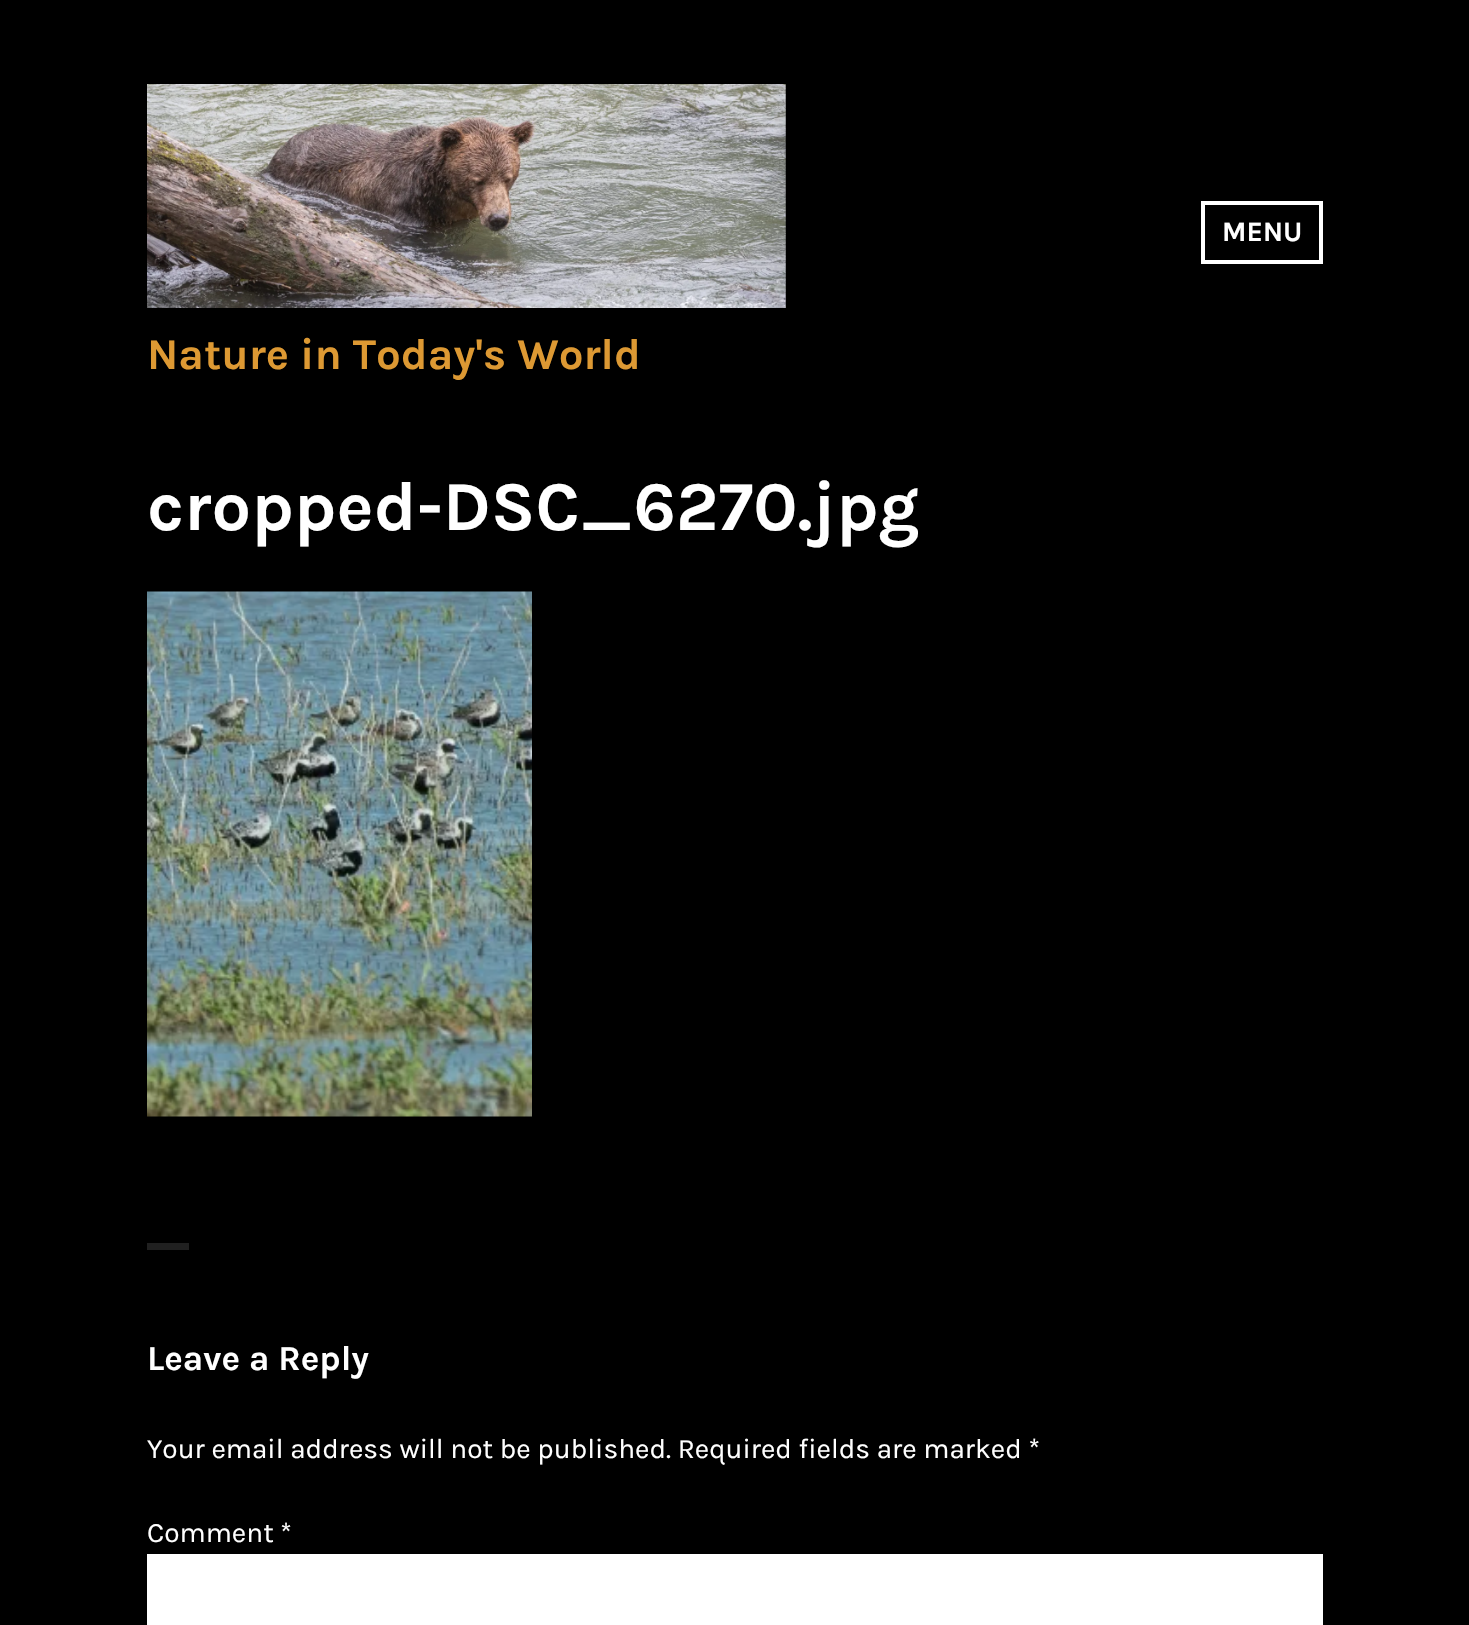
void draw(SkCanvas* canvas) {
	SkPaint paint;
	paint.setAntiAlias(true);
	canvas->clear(0xff000000);
	paint.setStroke(true);
	paint.setStrokeWidth(4);
	paint.setColor(0xffffffff);
	canvas->drawRect(SkRect::MakeXYWH(1203, 203, 118, 59), paint);
	SkFont f1(fontMgr->matchFamilyStyle("Karla", SkFontStyle::Bold()), 28);
	f1.setSubpixel(true);
	paint.setStroke(false);
	canvas->drawString("MENU", 1222, 241, f1, paint);
	canvas->drawImageRect(SkImages::DeferredFromEncodedData(SkData::MakeFromFileName("img1.png")), SkRect::MakeXYWH(147, 84, 639, 224), SkSamplingOptions());
	SkFont f2(fontMgr->matchFamilyStyle("Karla", SkFontStyle::Bold()), 43.75);
	f2.setSubpixel(true);
	paint.setColor(0xffdd9933);
	canvas->drawString("Nature in Today's World", 147, 369, f2, paint);
	SkFont f3(fontMgr->matchFamilyStyle("Karla", SkFontStyle::Bold()), 70);
	f3.setSubpixel(true);
	paint.setColor(0xffffffff);
	canvas->drawString("cropped-DSC_6270.jpg", 147, 530, f3, paint);
	canvas->drawImageRect(SkImages::DeferredFromEncodedData(SkData::MakeFromFileName("img2.png")), SkRect::MakeXYWH(147, 591, 385, 526), SkSamplingOptions());
	paint.setColor(0xff202020);
	canvas->drawRect(SkRect::MakeXYWH(147, 1243, 42, 7), paint);
	SkFont f4(fontMgr->matchFamilyStyle("Karla", SkFontStyle::Bold()), 35);
	f4.setSubpixel(true);
	paint.setColor(0xffffffff);
	canvas->drawString("Leave a Reply", 147, 1370, f4, paint);
	SkFont f5(fontMgr->matchFamilyStyle("Karla", SkFontStyle::Normal()), 28);
	f5.setSubpixel(true);
	canvas->drawString("Your email address will not be published. Required fields are marked *", 147, 1458, f5, paint);
	canvas->drawString("Comment *", 147, 1542, f5, paint);
	canvas->drawRect(SkRect::MakeXYWH(147, 1554, 1176, 71), paint);
}
